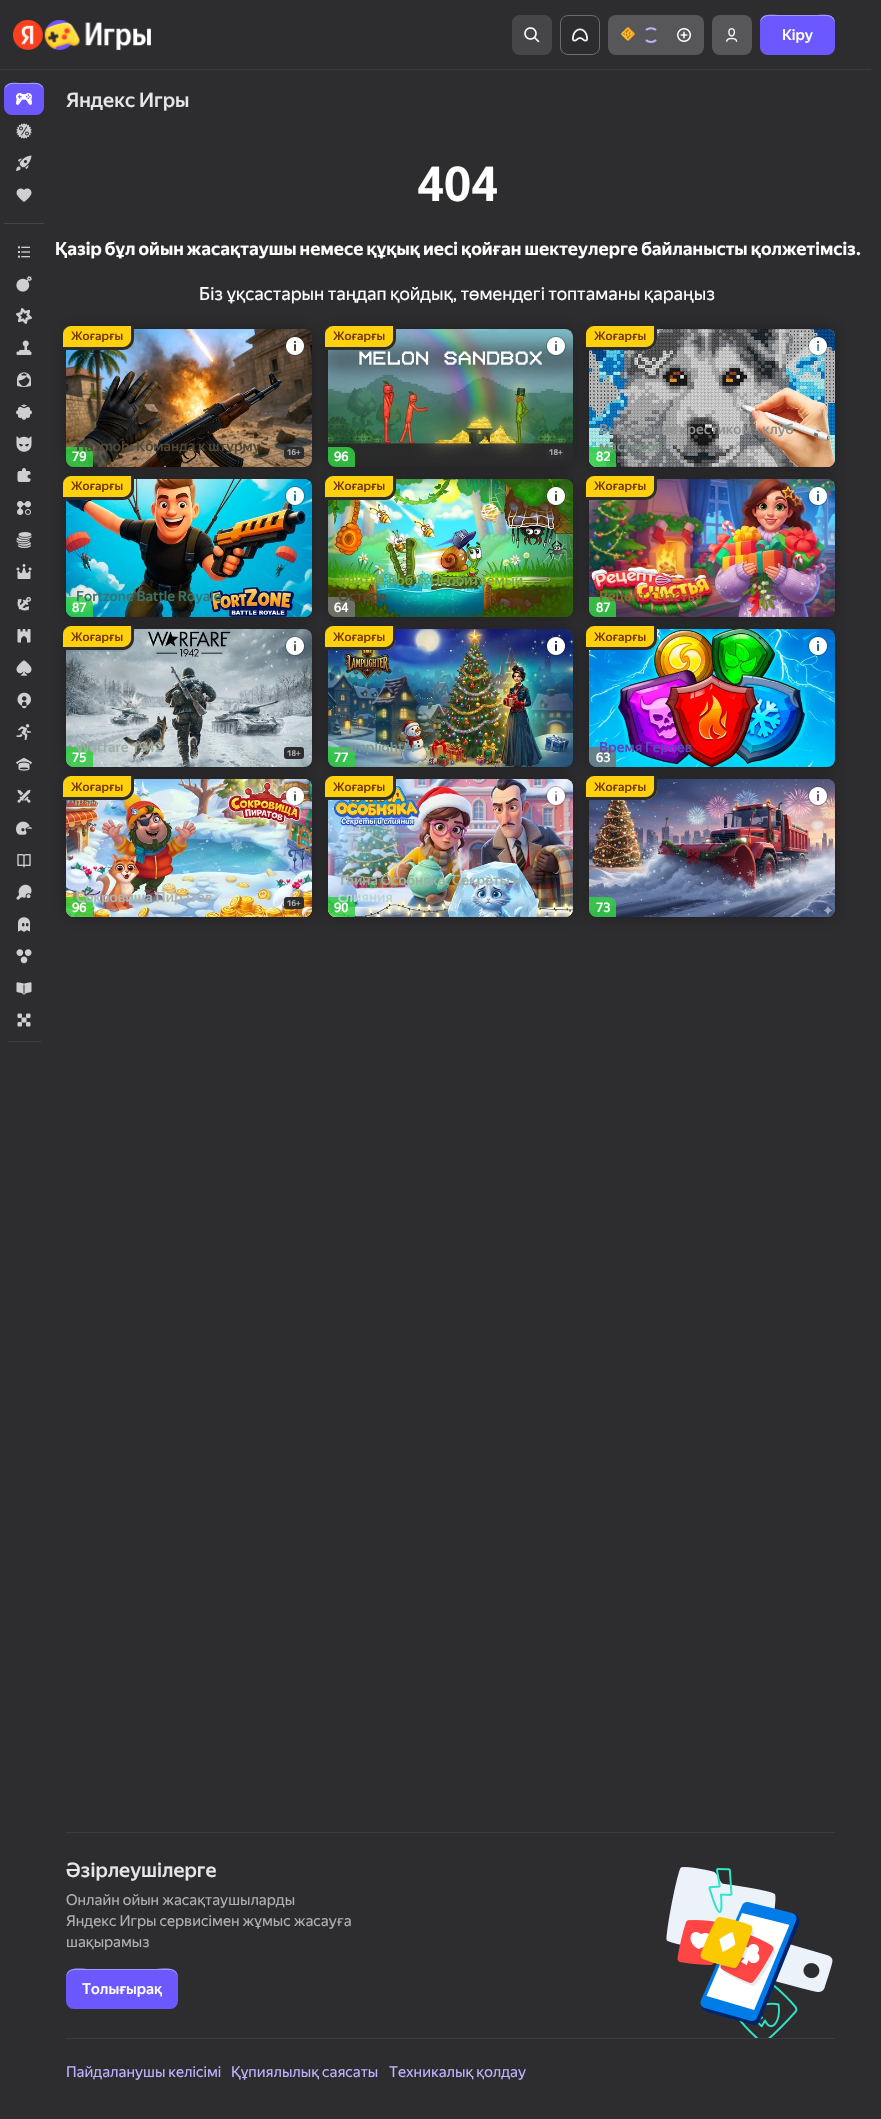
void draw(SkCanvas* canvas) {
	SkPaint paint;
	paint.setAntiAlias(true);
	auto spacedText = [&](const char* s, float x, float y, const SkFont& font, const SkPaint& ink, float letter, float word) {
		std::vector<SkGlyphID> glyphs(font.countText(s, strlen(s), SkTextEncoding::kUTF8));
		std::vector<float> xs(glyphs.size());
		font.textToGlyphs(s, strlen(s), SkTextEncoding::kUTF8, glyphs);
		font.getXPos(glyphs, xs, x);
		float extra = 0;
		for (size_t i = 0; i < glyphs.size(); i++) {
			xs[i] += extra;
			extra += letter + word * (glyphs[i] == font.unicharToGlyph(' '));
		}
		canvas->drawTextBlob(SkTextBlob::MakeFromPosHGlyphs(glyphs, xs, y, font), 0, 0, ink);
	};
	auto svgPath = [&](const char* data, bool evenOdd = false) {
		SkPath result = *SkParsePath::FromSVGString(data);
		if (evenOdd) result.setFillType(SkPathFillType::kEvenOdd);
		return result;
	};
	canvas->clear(0xff2d2d2f);
	paint.setColor(0xff3a3a3b);
	canvas->drawRect(SkRect::MakeXYWH(0, 69, 871, 1), paint);
	canvas->drawImageRect(SkImages::DeferredFromEncodedData(SkData::MakeFromFileName("img1.png")), SkRect::MakeXYWH(13, 20, 138, 30), SkSamplingOptions());
	paint.setColor(0xff464648);
	canvas->drawRoundRect(SkRect::MakeXYWH(512, 15, 40, 40), 8, 8, paint);
	canvas->drawImageRect(SkImages::DeferredFromEncodedData(SkData::MakeFromFileName("img2.png")), SkRect::MakeXYWH(524, 27, 16, 16), SkSamplingOptions());
	paint.setStroke(true);
	paint.setStrokeWidth(1);
	paint.setColor(0xff6a6b70);
	canvas->drawRoundRect(SkRect::MakeXYWH(560.5, 15.5, 39, 39), 7.5, 7.5, paint);
	canvas->drawImageRect(SkImages::DeferredFromEncodedData(SkData::MakeFromFileName("img3.png")), SkRect::MakeXYWH(572, 28, 16, 14), SkSamplingOptions());
	paint.setStroke(false);
	paint.setColor(0xff575759);
	canvas->drawRoundRect(SkRect::MakeXYWH(608, 15, 96, 40), 8, 8, paint);
	canvas->drawImageRect(SkImages::DeferredFromEncodedData(SkData::MakeFromFileName("img4.png")), SkRect::MakeXYWH(620, 26, 16, 16), SkSamplingOptions());
	paint.setStroke(true);
	paint.setStrokeWidth(2);
	paint.setColor(0xffbcb3ff);
	canvas->drawPath(svgPath("M646 30C648.5 27.5 653.5 27.5 656 30M656 40C653.5 42.5 648.5 42.5 646 40"), paint);
	canvas->drawImageRect(SkImages::DeferredFromEncodedData(SkData::MakeFromFileName("img5.png")), SkRect::MakeXYWH(677, 28, 15, 14), SkSamplingOptions());
	paint.setStroke(false);
	paint.setColor(0xff575759);
	canvas->drawRoundRect(SkRect::MakeXYWH(712, 15, 40, 40), 8, 8, paint);
	canvas->drawImageRect(SkImages::DeferredFromEncodedData(SkData::MakeFromFileName("img6.png")), SkRect::MakeXYWH(726, 28, 12, 14), SkSamplingOptions());
	paint.setColor(0xff6b58ff);
	canvas->drawRoundRect(SkRect::MakeXYWH(760, 15, 75, 40), 8, 8, paint);
	paint.setColor(0xffa398ff);
	canvas->drawPath(svgPath("M768 16H827C831 16 835 20 835 24C835 13 825 15 817 15H778C770 15 760 13 760 24C760 20 764 16 768 16Z"), paint);
	SkFont f1(fontMgr->matchFamilyStyle("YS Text", SkFontStyle(500, SkFontStyle::kNormal_Width, SkFontStyle::kUpright_Slant)), 15);
	f1.setSubpixel(true);
	paint.setColor(0xffffffff);
	canvas->drawString("Кіру", 782, 40, f1, paint);
	paint.setColor(0xff6b58ff);
	canvas->drawRoundRect(SkRect::MakeXYWH(4, 83, 40, 32), 8, 8, paint);
	paint.setColor(0xffa398ff);
	canvas->drawPath(svgPath("M12 84C8 84 4 88 4 92C4 80 16 83 24 83C32 83 44 80 44 92C44 88 40 84 36 84Z"), paint);
	canvas->drawImageRect(SkImages::DeferredFromEncodedData(SkData::MakeFromFileName("img7.png")), SkRect::MakeXYWH(16, 93, 16, 12), SkSamplingOptions());
	canvas->drawImageRect(SkImages::DeferredFromEncodedData(SkData::MakeFromFileName("img8.png")), SkRect::MakeXYWH(16, 123, 16, 16), SkSamplingOptions());
	canvas->drawImageRect(SkImages::DeferredFromEncodedData(SkData::MakeFromFileName("img9.png")), SkRect::MakeXYWH(16, 155, 16, 16), SkSamplingOptions());
	canvas->drawImageRect(SkImages::DeferredFromEncodedData(SkData::MakeFromFileName("img10.png")), SkRect::MakeXYWH(16, 188, 16, 14), SkSamplingOptions());
	paint.setColor(0xff424244);
	canvas->drawRect(SkRect::MakeXYWH(4, 223, 40, 1), paint);
	canvas->drawImageRect(SkImages::DeferredFromEncodedData(SkData::MakeFromFileName("img11.png")), SkRect::MakeXYWH(18, 246, 12, 12), SkSamplingOptions());
	canvas->drawImageRect(SkImages::DeferredFromEncodedData(SkData::MakeFromFileName("img12.png")), SkRect::MakeXYWH(16, 276, 16, 16), SkSamplingOptions());
	canvas->drawImageRect(SkImages::DeferredFromEncodedData(SkData::MakeFromFileName("img13.png")), SkRect::MakeXYWH(16, 308, 16, 16), SkSamplingOptions());
	canvas->drawImageRect(SkImages::DeferredFromEncodedData(SkData::MakeFromFileName("img14.png")), SkRect::MakeXYWH(16, 340, 16, 15), SkSamplingOptions());
	canvas->drawImageRect(SkImages::DeferredFromEncodedData(SkData::MakeFromFileName("img15.png")), SkRect::MakeXYWH(17, 372, 14, 15), SkSamplingOptions());
	canvas->drawImageRect(SkImages::DeferredFromEncodedData(SkData::MakeFromFileName("img16.png")), SkRect::MakeXYWH(16, 404, 16, 16), SkSamplingOptions());
	canvas->drawImageRect(SkImages::DeferredFromEncodedData(SkData::MakeFromFileName("img17.png")), SkRect::MakeXYWH(16, 436, 16, 16), SkSamplingOptions());
	canvas->drawImageRect(SkImages::DeferredFromEncodedData(SkData::MakeFromFileName("img18.png")), SkRect::MakeXYWH(17, 468, 14, 14), SkSamplingOptions());
	canvas->drawImageRect(SkImages::DeferredFromEncodedData(SkData::MakeFromFileName("img19.png")), SkRect::MakeXYWH(17, 501, 14, 14), SkSamplingOptions());
	canvas->drawImageRect(SkImages::DeferredFromEncodedData(SkData::MakeFromFileName("img20.png")), SkRect::MakeXYWH(16, 532, 16, 16), SkSamplingOptions());
	canvas->drawImageRect(SkImages::DeferredFromEncodedData(SkData::MakeFromFileName("img21.png")), SkRect::MakeXYWH(16, 564, 16, 15), SkSamplingOptions());
	canvas->drawImageRect(SkImages::DeferredFromEncodedData(SkData::MakeFromFileName("img22.png")), SkRect::MakeXYWH(17, 597, 14, 14), SkSamplingOptions());
	canvas->drawImageRect(SkImages::DeferredFromEncodedData(SkData::MakeFromFileName("img23.png")), SkRect::MakeXYWH(17, 629, 14, 14), SkSamplingOptions());
	canvas->drawImageRect(SkImages::DeferredFromEncodedData(SkData::MakeFromFileName("img24.png")), SkRect::MakeXYWH(16, 660, 16, 16), SkSamplingOptions());
	canvas->drawImageRect(SkImages::DeferredFromEncodedData(SkData::MakeFromFileName("img25.png")), SkRect::MakeXYWH(17, 692, 14, 17), SkSamplingOptions());
	canvas->drawImageRect(SkImages::DeferredFromEncodedData(SkData::MakeFromFileName("img26.png")), SkRect::MakeXYWH(16, 724, 15, 16), SkSamplingOptions());
	canvas->drawImageRect(SkImages::DeferredFromEncodedData(SkData::MakeFromFileName("img27.png")), SkRect::MakeXYWH(16, 758, 16, 13), SkSamplingOptions());
	canvas->drawImageRect(SkImages::DeferredFromEncodedData(SkData::MakeFromFileName("img28.png")), SkRect::MakeXYWH(17, 789, 14, 14), SkSamplingOptions());
	canvas->drawImageRect(SkImages::DeferredFromEncodedData(SkData::MakeFromFileName("img29.png")), SkRect::MakeXYWH(16, 821, 16, 14), SkSamplingOptions());
	canvas->drawImageRect(SkImages::DeferredFromEncodedData(SkData::MakeFromFileName("img30.png")), SkRect::MakeXYWH(17, 854, 14, 14), SkSamplingOptions());
	canvas->drawImageRect(SkImages::DeferredFromEncodedData(SkData::MakeFromFileName("img31.png")), SkRect::MakeXYWH(16, 884, 16, 16), SkSamplingOptions());
	canvas->drawImageRect(SkImages::DeferredFromEncodedData(SkData::MakeFromFileName("img32.png")), SkRect::MakeXYWH(18, 917, 12, 15), SkSamplingOptions());
	canvas->drawImageRect(SkImages::DeferredFromEncodedData(SkData::MakeFromFileName("img33.png")), SkRect::MakeXYWH(16, 949, 16, 15), SkSamplingOptions());
	canvas->drawImageRect(SkImages::DeferredFromEncodedData(SkData::MakeFromFileName("img34.png")), SkRect::MakeXYWH(16, 982, 16, 13), SkSamplingOptions());
	canvas->drawImageRect(SkImages::DeferredFromEncodedData(SkData::MakeFromFileName("img35.png")), SkRect::MakeXYWH(17, 1013, 14, 14), SkSamplingOptions());
	paint.setColor(0xff3a3a3b);
	canvas->drawRect(SkRect::MakeXYWH(8, 1041, 34, 1), paint);
	SkFont f2(fontMgr->matchFamilyStyle("YS Text", SkFontStyle(500, SkFontStyle::kNormal_Width, SkFontStyle::kUpright_Slant)), 20);
	f2.setSubpixel(true);
	paint.setColor(0xffe6e6e7);
	canvas->drawString("Яндекс Игры", 66, 107, f2, paint);
	SkFont f3(fontMgr->matchFamilyStyle("YS Text", SkFontStyle::Bold()), 48);
	f3.setSubpixel(true);
	paint.setColor(0xffffffff);
	canvas->drawString("404", 417, 201, f3, paint);
	SkFont f4(fontMgr->matchFamilyStyle("YS Text", SkFontStyle::Bold()), 18);
	f4.setSubpixel(true);
	spacedText("Қазір бұл ойын жасақтаушы немесе құқық иесі қойған шектеулерге байланысты қолжетімсіз.", 55, 255, f4, paint, 0, -0.4);
	SkFont f5(fontMgr->matchFamilyStyle("YS Text", SkFontStyle::Normal()), 18);
	f5.setSubpixel(true);
	spacedText("Біз ұқсастарын таңдап қойдық, төмендегі топтаманы қараңыз", 199, 300, f5, paint, 0, -0.25);
	paint.setColor(0x4d000000);
	paint.setMaskFilter(SkMaskFilter::MakeBlur(kNormal_SkBlurStyle, 8));
	canvas->drawRoundRect(SkRect::MakeXYWH(66, 329, 246, 138), 8, 8, paint);
	paint.setMaskFilter(nullptr);
	paint.setColor(0xff504030);
	canvas->drawRoundRect(SkRect::MakeXYWH(66, 329, 246, 138), 8, 8, paint);
	canvas->drawImageRect(SkImages::DeferredFromEncodedData(SkData::MakeFromFileName("img36.png")), SkRect::MakeXYWH(66, 329, 246, 138), SkSamplingOptions());
	paint.setColor(0xffffd00d);
	canvas->drawPath(svgPath("M71 326H134V339C134 345 129 350 123 350H63V334C63 329.5 66.5 326 71 326Z"), paint);
	paint.setColor(0xff2d2d2f);
	canvas->drawPath(svgPath("M71 326H134V339C134 345 129 350 123 350H63V334C63 330 67 326 71 326ZM71 326H131V339C131 343 127 347 123 347H63C63 340 60 326 71 326Z", true), paint);
	SkFont f6(fontMgr->matchFamilyStyle("YS Text", SkFontStyle(500, SkFontStyle::kNormal_Width, SkFontStyle::kUpright_Slant)), 12);
	f6.setSubpixel(true);
	paint.setColor(0xff733600);
	canvas->drawString("Жоғарғы", 71, 340, f6, paint);
	paint.setColor(0xd933d043);
	canvas->drawPath(svgPath("M66 447H85C89.5 447 93 450.5 93 455V467H74C69.5 467 66 463.5 66 459Z"), paint);
	SkFont f7(fontMgr->matchFamilyStyle("YS Text", SkFontStyle(500, SkFontStyle::kNormal_Width, SkFontStyle::kUpright_Slant)), 14);
	f7.setSubpixel(true);
	paint.setColor(0xff504835);
	canvas->drawString("Hazmob: Команда к штурму", 76, 451, f7, paint);
	paint.setColor(0xff2d2d2f);
	canvas->drawRoundRect(SkRect::MakeXYWH(284, 447, 20, 12), 3, 3, paint);
	SkFont f8(fontMgr->matchFamilyStyle("YS Text", SkFontStyle::Bold()), 8);
	f8.setSubpixel(true);
	paint.setColor(0xffaeafb2);
	canvas->drawString("16+", 287, 455, f8, paint);
	SkFont f9(fontMgr->matchFamilyStyle("YS Text", SkFontStyle(500, SkFontStyle::kNormal_Width, SkFontStyle::kUpright_Slant)), 13);
	f9.setSubpixel(true);
	paint.setColor(0xffffffff);
	canvas->drawString("79", 72, 461, f9, paint);
	canvas->drawImageRect(SkImages::DeferredFromEncodedData(SkData::MakeFromFileName("img37.png")), SkRect::MakeXYWH(285, 336, 20, 20), SkSamplingOptions());
	paint.setColor(0x4d000000);
	paint.setMaskFilter(SkMaskFilter::MakeBlur(kNormal_SkBlurStyle, 8));
	canvas->drawRoundRect(SkRect::MakeXYWH(328, 329, 245, 138), 8, 8, paint);
	paint.setMaskFilter(nullptr);
	paint.setColor(0xff282828);
	canvas->drawRoundRect(SkRect::MakeXYWH(328, 329, 245, 138), 8, 8, paint);
	canvas->drawImageRect(SkImages::DeferredFromEncodedData(SkData::MakeFromFileName("img38.png")), SkRect::MakeXYWH(328, 329, 245, 135), SkSamplingOptions());
	paint.setColor(0xffffd00d);
	canvas->drawPath(svgPath("M333 326H396V339C396 345 391 350 385 350H325V334C325 329.5 328.5 326 333 326Z"), paint);
	paint.setColor(0xff2d2d2f);
	canvas->drawPath(svgPath("M333 326H396V339C396 345 391 350 385 350H325V334C325 330 329 326 333 326ZM333 326H393V339C393 343 389 347 385 347H325C325 340 322 326 333 326Z", true), paint);
	paint.setColor(0xff733600);
	canvas->drawString("Жоғарғы", 333, 340, f6, paint);
	paint.setColor(0xd933d043);
	canvas->drawPath(svgPath("M328 447H347C351.5 447 355 450.5 355 455V467H336C331.5 467 328 463.5 328 459Z"), paint);
	paint.setColor(0xffffffff);
	canvas->drawString("96", 334, 461, f9, paint);
	paint.setColor(0xff2d2d2f);
	canvas->drawRoundRect(SkRect::MakeXYWH(546, 447, 19, 12), 3, 3, paint);
	paint.setColor(0xffaeafb2);
	canvas->drawString("18+", 549, 455, f8, paint);
	canvas->drawImageRect(SkImages::DeferredFromEncodedData(SkData::MakeFromFileName("img39.png")), SkRect::MakeXYWH(546, 336, 20, 20), SkSamplingOptions());
	paint.setColor(0x4d000000);
	paint.setMaskFilter(SkMaskFilter::MakeBlur(kNormal_SkBlurStyle, 8));
	canvas->drawRoundRect(SkRect::MakeXYWH(589, 329, 246, 138), 8, 8, paint);
	paint.setMaskFilter(nullptr);
	paint.setColor(0xffb8b8b8);
	canvas->drawRoundRect(SkRect::MakeXYWH(589, 329, 246, 138), 8, 8, paint);
	canvas->drawImageRect(SkImages::DeferredFromEncodedData(SkData::MakeFromFileName("img40.png")), SkRect::MakeXYWH(589, 329, 246, 138), SkSamplingOptions());
	paint.setColor(0xffffd00d);
	canvas->drawPath(svgPath("M594 326H657V339C657 345 652 350 646 350H586V334C586 329.5 589.5 326 594 326Z"), paint);
	paint.setColor(0xff2d2d2f);
	canvas->drawPath(svgPath("M594 326H657V339C657 345 652 350 646 350H586V334C586 330 590 326 594 326ZM594 326H654V339C654 343 650 347 646 347H586C586 340 583 326 594 326Z", true), paint);
	paint.setColor(0xff733600);
	canvas->drawString("Жоғарғы", 594, 340, f6, paint);
	paint.setColor(0xff909090);
	canvas->drawString("Вышивание крестиком - клуб", 599, 434, f7, paint);
	paint.setColor(0xd933d043);
	canvas->drawPath(svgPath("M589 447H608C612.5 447 616 450.5 616 455V467H597C592.5 467 589 463.5 589 459Z"), paint);
	paint.setColor(0xff788e84);
	canvas->drawString("мастеров!", 599, 451, f7, paint);
	paint.setColor(0xffffffff);
	canvas->drawString("82", 596, 461, f9, paint);
	canvas->drawImageRect(SkImages::DeferredFromEncodedData(SkData::MakeFromFileName("img41.png")), SkRect::MakeXYWH(808, 336, 20, 20), SkSamplingOptions());
	paint.setColor(0x4d000000);
	paint.setMaskFilter(SkMaskFilter::MakeBlur(kNormal_SkBlurStyle, 8));
	canvas->drawRoundRect(SkRect::MakeXYWH(66, 479, 246, 138), 8, 8, paint);
	paint.setMaskFilter(nullptr);
	paint.setColor(0xff08b0d8);
	canvas->drawRoundRect(SkRect::MakeXYWH(66, 479, 246, 138), 8, 8, paint);
	canvas->drawImageRect(SkImages::DeferredFromEncodedData(SkData::MakeFromFileName("img42.png")), SkRect::MakeXYWH(66, 479, 246, 138), SkSamplingOptions());
	paint.setColor(0xffffd00d);
	canvas->drawPath(svgPath("M71 476H134V489C134 495 129 500 123 500H63V484C63 479.5 66.5 476 71 476Z"), paint);
	paint.setColor(0xff2d2d2f);
	canvas->drawPath(svgPath("M71 476H134V489C134 495 129 500 123 500H63V484C63 480 67 476 71 476ZM71 476H131V489C131 493 127 497 123 497H63C63 490 60 476 71 476Z", true), paint);
	paint.setColor(0xff733600);
	canvas->drawString("Жоғарғы", 71, 490, f6, paint);
	paint.setColor(0xd933d043);
	canvas->drawPath(svgPath("M66 597H85C89.5 597 93 600.5 93 605V617H74C69.5 617 66 613.5 66 609Z"), paint);
	paint.setColor(0xff387471);
	canvas->drawString("Fortzone Battle Royale", 76, 601, f7, paint);
	paint.setColor(0xffffffff);
	canvas->drawString("87", 72, 612, f9, paint);
	canvas->drawImageRect(SkImages::DeferredFromEncodedData(SkData::MakeFromFileName("img43.png")), SkRect::MakeXYWH(285, 486, 20, 20), SkSamplingOptions());
	paint.setColor(0x4d000000);
	paint.setMaskFilter(SkMaskFilter::MakeBlur(kNormal_SkBlurStyle, 8));
	canvas->drawRoundRect(SkRect::MakeXYWH(328, 479, 245, 138), 8, 8, paint);
	paint.setMaskFilter(nullptr);
	paint.setColor(0xff306010);
	canvas->drawRoundRect(SkRect::MakeXYWH(328, 479, 245, 138), 8, 8, paint);
	canvas->drawImageRect(SkImages::DeferredFromEncodedData(SkData::MakeFromFileName("img44.png")), SkRect::MakeXYWH(328, 479, 245, 138), SkSamplingOptions());
	paint.setColor(0xffffd00d);
	canvas->drawPath(svgPath("M333 476H396V489C396 495 391 500 385 500H325V484C325 479.5 328.5 476 333 476Z"), paint);
	paint.setColor(0xff2d2d2f);
	canvas->drawPath(svgPath("M333 476H396V489C396 495 391 500 385 500H325V484C325 480 329 476 333 476ZM333 476H393V489C393 493 389 497 385 497H325C325 490 322 476 333 476Z", true), paint);
	paint.setColor(0xff733600);
	canvas->drawString("Жоғарғы", 333, 490, f6, paint);
	paint.setColor(0xff77a845);
	canvas->drawString("Улитка Боб 3: Необитаемый", 338, 585, f7, paint);
	paint.setColor(0xd9777777);
	canvas->drawPath(svgPath("M328 597H347C351.5 597 355 600.5 355 605V617H336C331.5 617 328 613.5 328 609Z"), paint);
	paint.setColor(0xff4a5035);
	canvas->drawString("Остров", 338, 601, f7, paint);
	paint.setColor(0xffffffff);
	canvas->drawString("64", 334, 612, f9, paint);
	canvas->drawImageRect(SkImages::DeferredFromEncodedData(SkData::MakeFromFileName("img45.png")), SkRect::MakeXYWH(546, 486, 20, 20), SkSamplingOptions());
	paint.setColor(0x4d000000);
	paint.setMaskFilter(SkMaskFilter::MakeBlur(kNormal_SkBlurStyle, 8));
	canvas->drawRoundRect(SkRect::MakeXYWH(589, 479, 246, 138), 8, 8, paint);
	paint.setMaskFilter(nullptr);
	paint.setColor(0xff504060);
	canvas->drawRoundRect(SkRect::MakeXYWH(589, 479, 246, 138), 8, 8, paint);
	canvas->drawImageRect(SkImages::DeferredFromEncodedData(SkData::MakeFromFileName("img46.png")), SkRect::MakeXYWH(589, 479, 246, 138), SkSamplingOptions());
	paint.setColor(0xffffd00d);
	canvas->drawPath(svgPath("M594 476H657V489C657 495 652 500 646 500H586V484C586 479.5 589.5 476 594 476Z"), paint);
	paint.setColor(0xff2d2d2f);
	canvas->drawPath(svgPath("M594 476H657V489C657 495 652 500 646 500H586V484C586 480 590 476 594 476ZM594 476H654V489C654 493 650 497 646 497H586C586 490 583 476 594 476Z", true), paint);
	paint.setColor(0xff733600);
	canvas->drawString("Жоғарғы", 594, 490, f6, paint);
	paint.setColor(0xd933d043);
	canvas->drawPath(svgPath("M589 597H608C612.5 597 616 600.5 616 605V617H597C592.5 617 589 613.5 589 609Z"), paint);
	paint.setColor(0xff976430);
	canvas->drawString("Рецепт Счастья", 599, 601, f7, paint);
	paint.setColor(0xffffffff);
	canvas->drawString("87", 596, 612, f9, paint);
	canvas->drawImageRect(SkImages::DeferredFromEncodedData(SkData::MakeFromFileName("img47.png")), SkRect::MakeXYWH(808, 486, 20, 20), SkSamplingOptions());
	paint.setColor(0x4d000000);
	paint.setMaskFilter(SkMaskFilter::MakeBlur(kNormal_SkBlurStyle, 8));
	canvas->drawRoundRect(SkRect::MakeXYWH(66, 629, 246, 138), 8, 8, paint);
	paint.setMaskFilter(nullptr);
	canvas->drawImageRect(SkImages::DeferredFromEncodedData(SkData::MakeFromFileName("img48.png")), SkRect::MakeXYWH(66, 629, 246, 138), SkSamplingOptions());
	paint.setColor(0xffffd00d);
	canvas->drawPath(svgPath("M71 626H134V639C134 645 129 650 123 650H63V634C63 629.5 66.5 626 71 626Z"), paint);
	paint.setColor(0xff2d2d2f);
	canvas->drawPath(svgPath("M71 626H134V639C134 645 129 650 123 650H63V634C63 630 67 626 71 626ZM71 626H131V639C131 643 127 647 123 647H63C63 640 60 626 71 626Z", true), paint);
	paint.setColor(0xff733600);
	canvas->drawString("Жоғарғы", 71, 641, f6, paint);
	paint.setColor(0xd933d043);
	canvas->drawPath(svgPath("M66 747H85C89.5 747 93 750.5 93 755V767H74C69.5 767 66 763.5 66 759Z"), paint);
	paint.setColor(0xff9dafa4);
	canvas->drawString("Warfare 1942", 76, 752, f7, paint);
	paint.setColor(0xff2d2d2f);
	canvas->drawRoundRect(SkRect::MakeXYWH(284, 747, 20, 12), 3, 3, paint);
	paint.setColor(0xffaeafb2);
	canvas->drawString("18+", 287, 756, f8, paint);
	paint.setColor(0xffffffff);
	canvas->drawString("75", 72, 762, f9, paint);
	canvas->drawImageRect(SkImages::DeferredFromEncodedData(SkData::MakeFromFileName("img49.png")), SkRect::MakeXYWH(285, 636, 20, 20), SkSamplingOptions());
	paint.setColor(0x4d000000);
	paint.setMaskFilter(SkMaskFilter::MakeBlur(kNormal_SkBlurStyle, 8));
	canvas->drawRoundRect(SkRect::MakeXYWH(328, 629, 245, 138), 8, 8, paint);
	paint.setMaskFilter(nullptr);
	canvas->drawImageRect(SkImages::DeferredFromEncodedData(SkData::MakeFromFileName("img50.png")), SkRect::MakeXYWH(328, 629, 245, 138), SkSamplingOptions());
	paint.setColor(0xffffd00d);
	canvas->drawPath(svgPath("M333 626H396V639C396 645 391 650 385 650H325V634C325 629.5 328.5 626 333 626Z"), paint);
	paint.setColor(0xff2d2d2f);
	canvas->drawPath(svgPath("M333 626H396V639C396 645 391 650 385 650H325V634C325 630 329 626 333 626ZM333 626H393V639C393 643 389 647 385 647H325C325 640 322 626 333 626Z", true), paint);
	paint.setColor(0xff733600);
	canvas->drawString("Жоғарғы", 333, 641, f6, paint);
	paint.setColor(0xd933d043);
	canvas->drawPath(svgPath("M328 747H347C351.5 747 355 750.5 355 755V767H336C331.5 767 328 763.5 328 759Z"), paint);
	paint.setColor(0xff7a9997);
	canvas->drawString("Lamplighter", 338, 752, f7, paint);
	paint.setColor(0xffffffff);
	canvas->drawString("77", 334, 762, f9, paint);
	canvas->drawImageRect(SkImages::DeferredFromEncodedData(SkData::MakeFromFileName("img51.png")), SkRect::MakeXYWH(546, 636, 20, 20), SkSamplingOptions());
	paint.setColor(0x4d000000);
	paint.setMaskFilter(SkMaskFilter::MakeBlur(kNormal_SkBlurStyle, 8));
	canvas->drawRoundRect(SkRect::MakeXYWH(589, 629, 246, 138), 8, 8, paint);
	paint.setMaskFilter(nullptr);
	canvas->drawImageRect(SkImages::DeferredFromEncodedData(SkData::MakeFromFileName("img52.png")), SkRect::MakeXYWH(589, 629, 246, 138), SkSamplingOptions());
	paint.setColor(0xffffd00d);
	canvas->drawPath(svgPath("M594 626H657V639C657 645 652 650 646 650H586V634C586 629.5 589.5 626 594 626Z"), paint);
	paint.setColor(0xff2d2d2f);
	canvas->drawPath(svgPath("M594 626H657V639C657 645 652 650 646 650H586V634C586 630 590 626 594 626ZM594 626H654V639C654 643 650 647 646 647H586C586 640 583 626 594 626Z", true), paint);
	paint.setColor(0xff733600);
	canvas->drawString("Жоғарғы", 594, 641, f6, paint);
	paint.setColor(0xd9777777);
	canvas->drawPath(svgPath("M589 747H608C612.5 747 616 750.5 616 755V767H597C592.5 767 589 763.5 589 759Z"), paint);
	paint.setColor(0xff5b4ab8);
	canvas->drawString("Время Героев", 599, 752, f7, paint);
	paint.setColor(0xffffffff);
	canvas->drawString("63", 596, 762, f9, paint);
	canvas->drawImageRect(SkImages::DeferredFromEncodedData(SkData::MakeFromFileName("img53.png")), SkRect::MakeXYWH(808, 636, 20, 20), SkSamplingOptions());
	paint.setColor(0x4d000000);
	paint.setMaskFilter(SkMaskFilter::MakeBlur(kNormal_SkBlurStyle, 8));
	canvas->drawRoundRect(SkRect::MakeXYWH(66, 779, 246, 138), 8, 8, paint);
	paint.setMaskFilter(nullptr);
	paint.setColor(0xffe0f0f0);
	canvas->drawRoundRect(SkRect::MakeXYWH(66, 779, 246, 138), 8, 8, paint);
	canvas->drawImageRect(SkImages::DeferredFromEncodedData(SkData::MakeFromFileName("img54.png")), SkRect::MakeXYWH(66, 779, 246, 138), SkSamplingOptions());
	paint.setColor(0xffffd00d);
	canvas->drawPath(svgPath("M71 776H134V789C134 795 129 800 123 800H63V784C63 779.5 66.5 776 71 776Z"), paint);
	paint.setColor(0xff2d2d2f);
	canvas->drawPath(svgPath("M71 776H134V789C134 795 129 800 123 800H63V784C63 780 67 776 71 776ZM71 776H131V789C131 793 127 797 123 797H63C63 790 60 776 71 776Z", true), paint);
	paint.setColor(0xff733600);
	canvas->drawString("Жоғарғы", 71, 791, f6, paint);
	paint.setColor(0xd933d043);
	canvas->drawPath(svgPath("M66 897H85C89.5 897 93 900.5 93 905V917H74C69.5 917 66 913.5 66 909Z"), paint);
	paint.setColor(0xffb1b5b0);
	canvas->drawString("Сокровища Пиратов", 76, 902, f7, paint);
	paint.setColor(0xff2d2d2f);
	canvas->drawRoundRect(SkRect::MakeXYWH(284, 897, 20, 12), 3, 3, paint);
	paint.setColor(0xffaeafb2);
	canvas->drawString("16+", 287, 906, f8, paint);
	paint.setColor(0xffffffff);
	canvas->drawString("96", 72, 912, f9, paint);
	canvas->drawImageRect(SkImages::DeferredFromEncodedData(SkData::MakeFromFileName("img55.png")), SkRect::MakeXYWH(285, 786, 20, 20), SkSamplingOptions());
	paint.setColor(0x4d000000);
	paint.setMaskFilter(SkMaskFilter::MakeBlur(kNormal_SkBlurStyle, 8));
	canvas->drawRoundRect(SkRect::MakeXYWH(328, 779, 245, 138), 8, 8, paint);
	paint.setMaskFilter(nullptr);
	paint.setColor(0xffe0f0f0);
	canvas->drawRoundRect(SkRect::MakeXYWH(328, 779, 245, 138), 8, 8, paint);
	canvas->drawImageRect(SkImages::DeferredFromEncodedData(SkData::MakeFromFileName("img56.png")), SkRect::MakeXYWH(328, 779, 245, 138), SkSamplingOptions());
	paint.setColor(0xffffd00d);
	canvas->drawPath(svgPath("M333 776H396V789C396 795 391 800 385 800H325V784C325 779.5 328.5 776 333 776Z"), paint);
	paint.setColor(0xff2d2d2f);
	canvas->drawPath(svgPath("M333 776H396V789C396 795 391 800 385 800H325V784C325 780 329 776 333 776ZM333 776H393V789C393 793 389 797 385 797H325C325 790 322 776 333 776Z", true), paint);
	paint.setColor(0xff733600);
	canvas->drawString("Жоғарғы", 333, 791, f6, paint);
	paint.setColor(0xff9dafa4);
	canvas->drawString("Тайна Особняка: Секреты и", 338, 885, f7, paint);
	paint.setColor(0xd933d043);
	canvas->drawPath(svgPath("M328 897H347C351.5 897 355 900.5 355 905V917H336C331.5 917 328 913.5 328 909Z"), paint);
	paint.setColor(0xffb7d7da);
	canvas->drawString("слияния", 338, 902, f7, paint);
	paint.setColor(0xffffffff);
	canvas->drawString("90", 334, 912, f9, paint);
	canvas->drawImageRect(SkImages::DeferredFromEncodedData(SkData::MakeFromFileName("img57.png")), SkRect::MakeXYWH(546, 786, 20, 20), SkSamplingOptions());
	paint.setColor(0x4d000000);
	paint.setMaskFilter(SkMaskFilter::MakeBlur(kNormal_SkBlurStyle, 8));
	canvas->drawRoundRect(SkRect::MakeXYWH(589, 779, 246, 138), 8, 8, paint);
	paint.setMaskFilter(nullptr);
	paint.setColor(0xff506080);
	canvas->drawRoundRect(SkRect::MakeXYWH(589, 779, 246, 138), 8, 8, paint);
	canvas->drawImageRect(SkImages::DeferredFromEncodedData(SkData::MakeFromFileName("img58.png")), SkRect::MakeXYWH(589, 779, 246, 138), SkSamplingOptions());
	paint.setColor(0xffffd00d);
	canvas->drawPath(svgPath("M594 776H657V789C657 795 652 800 646 800H586V784C586 779.5 589.5 776 594 776Z"), paint);
	paint.setColor(0xff2d2d2f);
	canvas->drawPath(svgPath("M594 776H657V789C657 795 652 800 646 800H586V784C586 780 590 776 594 776ZM594 776H654V789C654 793 650 797 646 797H586C586 790 583 776 594 776Z", true), paint);
	paint.setColor(0xff733600);
	canvas->drawString("Жоғарғы", 594, 791, f6, paint);
	paint.setColor(0xd933d043);
	canvas->drawPath(svgPath("M589 897H608C612.5 897 616 900.5 616 905V917H597C592.5 917 589 913.5 589 909Z"), paint);
	paint.setColor(0xffffffff);
	canvas->drawString("73", 596, 912, f9, paint);
	canvas->drawImageRect(SkImages::DeferredFromEncodedData(SkData::MakeFromFileName("img59.png")), SkRect::MakeXYWH(808, 786, 20, 20), SkSamplingOptions());
	paint.setColor(0xff3b3b3e);
	canvas->drawRect(SkRect::MakeXYWH(66, 1832, 769, 1), paint);
	paint.setColor(0xffe6e6e7);
	canvas->drawString("Әзірлеушілерге", 66, 1877, f2, paint);
	SkFont f10(fontMgr->matchFamilyStyle("YS Text", SkFontStyle::Normal()), 15);
	f10.setSubpixel(true);
	paint.setColor(0xffaeafb2);
	canvas->drawString("Онлайн ойын жасақтаушыларды", 66, 1905, f10, paint);
	canvas->drawString("Яндекс Игры сервисімен жұмыс жасауға", 66, 1926, f10, paint);
	canvas->drawString("шақырамыз", 66, 1947, f10, paint);
	paint.setColor(0xff6b58ff);
	canvas->drawRoundRect(SkRect::MakeXYWH(66, 1969, 112, 40), 8, 8, paint);
	paint.setColor(0xffa398ff);
	canvas->drawPath(svgPath("M74 1970H170C174 1970 178 1974 178 1978C178 1965 162 1969 154 1969H90C82 1969 66 1965 66 1978C66 1974 70 1970 74 1970Z"), paint);
	canvas->save();
	canvas->clipRect(SkRect::MakeXYWH(82, 1969, 80, 40));
	paint.setColor(0xffffffff);
	canvas->drawString("Толығырақ", 82, 1994, f1, paint);
	canvas->restore();
	canvas->drawImageRect(SkImages::DeferredFromEncodedData(SkData::MakeFromFileName("img60.png")), SkRect::MakeXYWH(666, 1867, 167, 171), SkSamplingOptions());
	paint.setColor(0xff3b3b3e);
	canvas->drawRect(SkRect::MakeXYWH(66, 2038, 769, 1), paint);
	paint.setColor(0xffbcb3ff);
	canvas->drawString("Пайдаланушы келісімі", 66, 2077, f10, paint);
	canvas->drawString("Құпиялылық саясаты", 231, 2077, f10, paint);
	canvas->drawString("Техникалық қолдау", 389, 2077, f10, paint);
}
